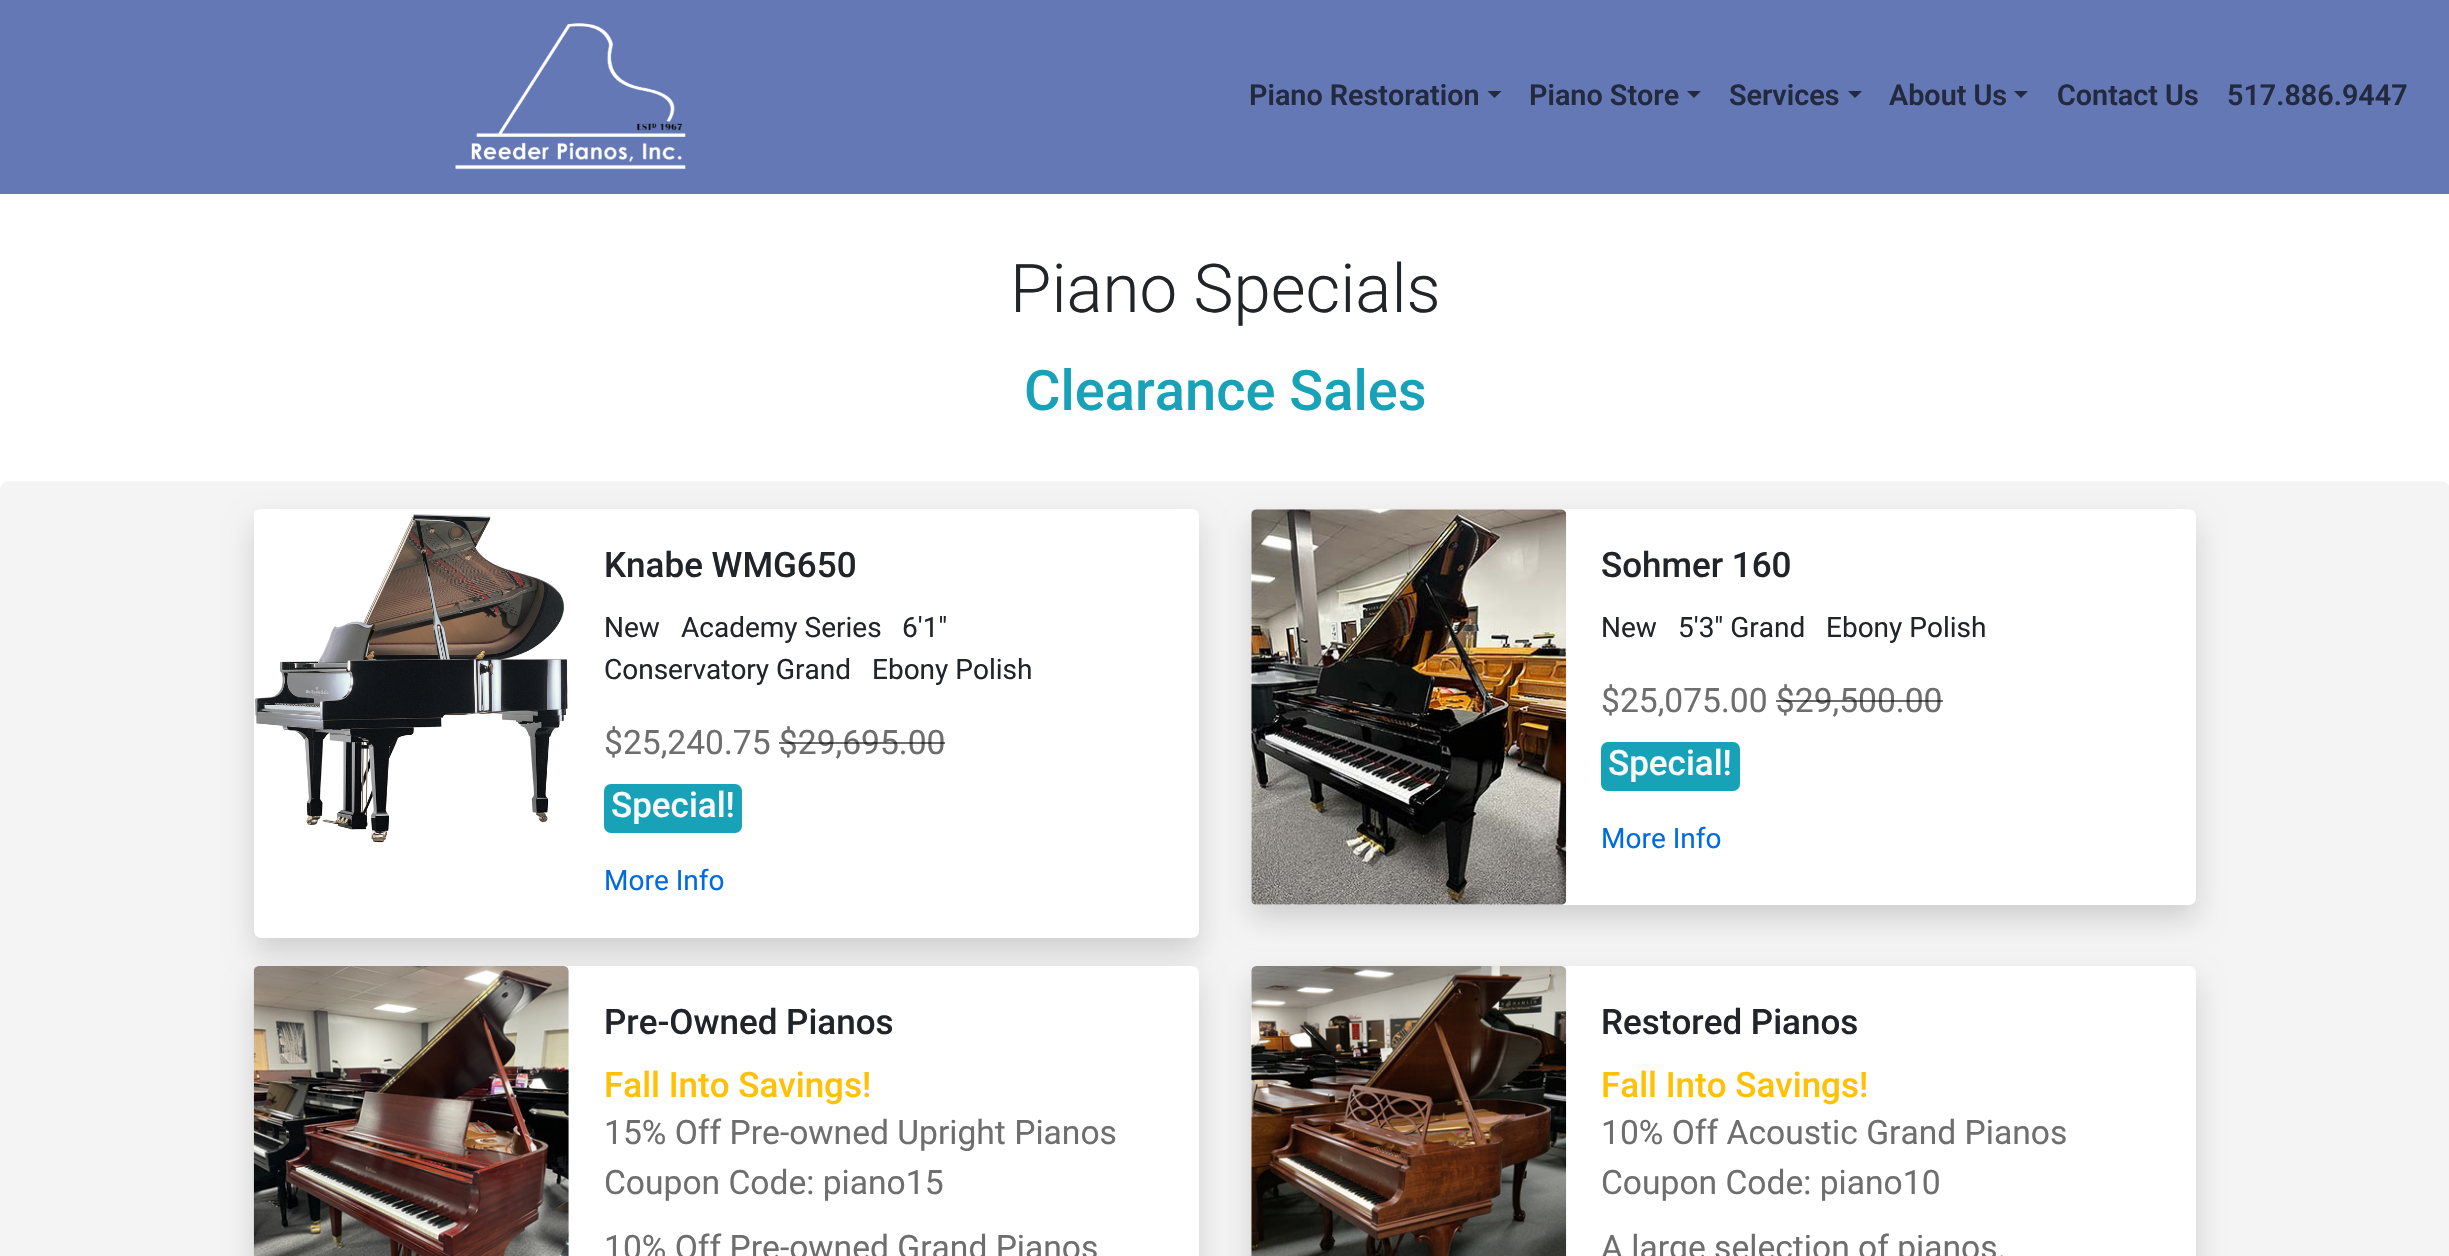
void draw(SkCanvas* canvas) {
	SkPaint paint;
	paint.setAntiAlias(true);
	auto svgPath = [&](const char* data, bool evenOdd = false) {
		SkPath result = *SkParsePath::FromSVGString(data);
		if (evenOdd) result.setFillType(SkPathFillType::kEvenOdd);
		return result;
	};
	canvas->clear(0xffffffff);
	paint.setColor(0xff6378b5);
	canvas->drawRect(SkRect::MakeXYWH(0, 0, 2449, 194), paint);
	canvas->drawImageRect(SkImages::DeferredFromEncodedData(SkData::MakeFromFileName("img1.png")), SkRect::MakeXYWH(455, 23, 231, 147), SkSamplingOptions());
	SkFont f1(fontMgr->matchFamilyStyle("Roboto", SkFontStyle(600, SkFontStyle::kNormal_Width, SkFontStyle::kUpright_Slant)), 28.75);
	f1.setSubpixel(true);
	paint.setColor(0xff232a3f);
	canvas->drawString("Piano Restoration", 1249, 105, f1, paint);
	canvas->drawPath(svgPath("M1487.5 91H1501.5L1494.5 98Z"), paint);
	canvas->drawString("Piano Store", 1529, 105, f1, paint);
	canvas->drawPath(svgPath("M1687 91H1701L1694 98Z"), paint);
	canvas->drawString("Services", 1729, 105, f1, paint);
	canvas->drawPath(svgPath("M1848 91H1862L1855 98Z"), paint);
	canvas->drawString("About Us", 1889, 105, f1, paint);
	canvas->drawPath(svgPath("M2014 91H2028L2021 98Z"), paint);
	canvas->drawString("Contact Us", 2057, 105, f1, paint);
	canvas->drawString("517.886.9447", 2227, 105, f1, paint);
	SkFont f2(fontMgr->matchFamilyStyle("Roboto", SkFontStyle(300, SkFontStyle::kNormal_Width, SkFontStyle::kUpright_Slant)), 67.25);
	f2.setSubpixel(true);
	paint.setColor(0xff212529);
	canvas->drawString("Piano Specials", 1010, 312, f2, paint);
	SkFont f3(fontMgr->matchFamilyStyle("Roboto", SkFontStyle(500, SkFontStyle::kNormal_Width, SkFontStyle::kUpright_Slant)), 56);
	f3.setSubpixel(true);
	paint.setColor(0xff17a2b8);
	canvas->drawString("Clearance Sales", 1024, 410, f3, paint);
	paint.setColor(0xfff4f4f4);
	canvas->drawRoundRect(SkRect::MakeXYWH(0, 481, 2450, 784), 9, 9, paint);
	paint.setColor(0x26000000);
	paint.setMaskFilter(SkMaskFilter::MakeBlur(kNormal_SkBlurStyle, 14));
	canvas->drawRoundRect(SkRect::MakeXYWH(254, 523, 945, 429), 7, 7, paint);
	paint.setMaskFilter(nullptr);
	paint.setColor(0xffffffff);
	canvas->drawRoundRect(SkRect::MakeXYWH(254, 509, 945, 429), 7, 7, paint);
	canvas->drawImageRect(SkImages::DeferredFromEncodedData(SkData::MakeFromFileName("img2.png")), SkRect::MakeXYWH(254, 510, 314, 333), SkSamplingOptions());
	SkFont f4(fontMgr->matchFamilyStyle("Roboto", SkFontStyle(500, SkFontStyle::kNormal_Width, SkFontStyle::kUpright_Slant)), 35);
	f4.setSubpixel(true);
	paint.setColor(0xff212529);
	canvas->drawString("Knabe WMG650", 604, 577, f4, paint);
	SkFont f5(fontMgr->matchFamilyStyle("Roboto", SkFontStyle::Normal()), 28);
	f5.setSubpixel(true);
	canvas->drawString("New", 604, 637, f5, paint);
	canvas->drawString("Academy Series", 681, 637, f5, paint);
	canvas->drawString("6'1\"", 902, 637, f5, paint);
	canvas->drawString("Conservatory Grand", 604, 679, f5, paint);
	canvas->drawString("Ebony Polish", 872, 679, f5, paint);
	SkFont f6(fontMgr->matchFamilyStyle("Roboto", SkFontStyle::Normal()), 33.6);
	f6.setSubpixel(true);
	paint.setColor(0xff6e6e6e);
	canvas->drawString("$25,240.75 $29,695.00", 604, 754, f6, paint);
	paint.setColor(0x91000000);
	canvas->drawRect(SkRect::MakeXYWH(779, 742, 166, 2), paint);
	paint.setColor(0xff17a2b8);
	canvas->drawRoundRect(SkRect::MakeXYWH(604, 784, 138, 49), 7, 7, paint);
	paint.setColor(0xfff8f9fa);
	canvas->drawString("Special!", 611, 817, f4, paint);
	paint.setColor(0xff006ce1);
	canvas->drawString("More Info", 604, 890, f5, paint);
	paint.setColor(0x26000000);
	paint.setMaskFilter(SkMaskFilter::MakeBlur(kNormal_SkBlurStyle, 14));
	canvas->drawRoundRect(SkRect::MakeXYWH(1251, 523, 945, 396), 7, 7, paint);
	paint.setMaskFilter(nullptr);
	paint.setColor(0xffffffff);
	canvas->drawRoundRect(SkRect::MakeXYWH(1251, 509, 945, 396), 7, 7, paint);
	canvas->drawImageRect(SkImages::DeferredFromEncodedData(SkData::MakeFromFileName("img3.png")), SkRect::MakeXYWH(1251, 509, 316, 396), SkSamplingOptions());
	paint.setColor(0xff212529);
	canvas->drawString("Sohmer 160", 1601, 577, f4, paint);
	canvas->drawString("New", 1601, 637, f5, paint);
	canvas->drawString("5'3\" Grand", 1678, 637, f5, paint);
	canvas->drawString("Ebony Polish", 1826, 637, f5, paint);
	paint.setColor(0xff6e6e6e);
	canvas->drawString("$25,075.00 $29,500.00", 1601, 712, f6, paint);
	paint.setColor(0x91000000);
	canvas->drawRect(SkRect::MakeXYWH(1776, 700, 167, 2), paint);
	paint.setColor(0xff17a2b8);
	canvas->drawRoundRect(SkRect::MakeXYWH(1601, 742, 139, 49), 7, 7, paint);
	paint.setColor(0xfff8f9fa);
	canvas->drawString("Special!", 1608, 775, f4, paint);
	paint.setColor(0xff006ce1);
	canvas->drawString("More Info", 1601, 848, f5, paint);
	paint.setColor(0x26000000);
	paint.setMaskFilter(SkMaskFilter::MakeBlur(kNormal_SkBlurStyle, 14));
	canvas->drawRoundRect(SkRect::MakeXYWH(254, 980, 945, 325), 7, 7, paint);
	paint.setMaskFilter(nullptr);
	paint.setColor(0xffffffff);
	canvas->drawRoundRect(SkRect::MakeXYWH(254, 966, 945, 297), 7, 7, paint);
	canvas->drawImageRect(SkImages::DeferredFromEncodedData(SkData::MakeFromFileName("img4.png")), SkRect::MakeXYWH(253, 966, 316, 290), SkSamplingOptions());
	paint.setColor(0xff212529);
	canvas->drawString("Pre-Owned Pianos", 604, 1034, f4, paint);
	paint.setColor(0xffffc107);
	canvas->drawString("Fall Into Savings!", 604, 1097, f4, paint);
	paint.setColor(0xff6e6e6e);
	canvas->drawString("15% Off Pre-owned Upright Pianos", 604, 1144, f6, paint);
	canvas->drawString("Coupon Code: piano15", 604, 1194, f6, paint);
	canvas->drawString("10% Off Pre-owned Grand Pianos", 604, 1259, f6, paint);
	paint.setColor(0x26000000);
	paint.setMaskFilter(SkMaskFilter::MakeBlur(kNormal_SkBlurStyle, 14));
	canvas->drawRoundRect(SkRect::MakeXYWH(1251, 980, 945, 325), 7, 7, paint);
	paint.setMaskFilter(nullptr);
	paint.setColor(0xffffffff);
	canvas->drawRoundRect(SkRect::MakeXYWH(1251, 966, 945, 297), 7, 7, paint);
	canvas->drawImageRect(SkImages::DeferredFromEncodedData(SkData::MakeFromFileName("img5.png")), SkRect::MakeXYWH(1251, 966, 316, 290), SkSamplingOptions());
	paint.setColor(0xff212529);
	canvas->drawString("Restored Pianos", 1601, 1034, f4, paint);
	paint.setColor(0xffffc107);
	canvas->drawString("Fall Into Savings!", 1601, 1097, f4, paint);
	paint.setColor(0xff6e6e6e);
	canvas->drawString("10% Off Acoustic Grand Pianos", 1601, 1144, f6, paint);
	canvas->drawString("Coupon Code: piano10", 1601, 1194, f6, paint);
	canvas->drawString("A large selection of pianos.", 1601, 1259, f6, paint);
}
